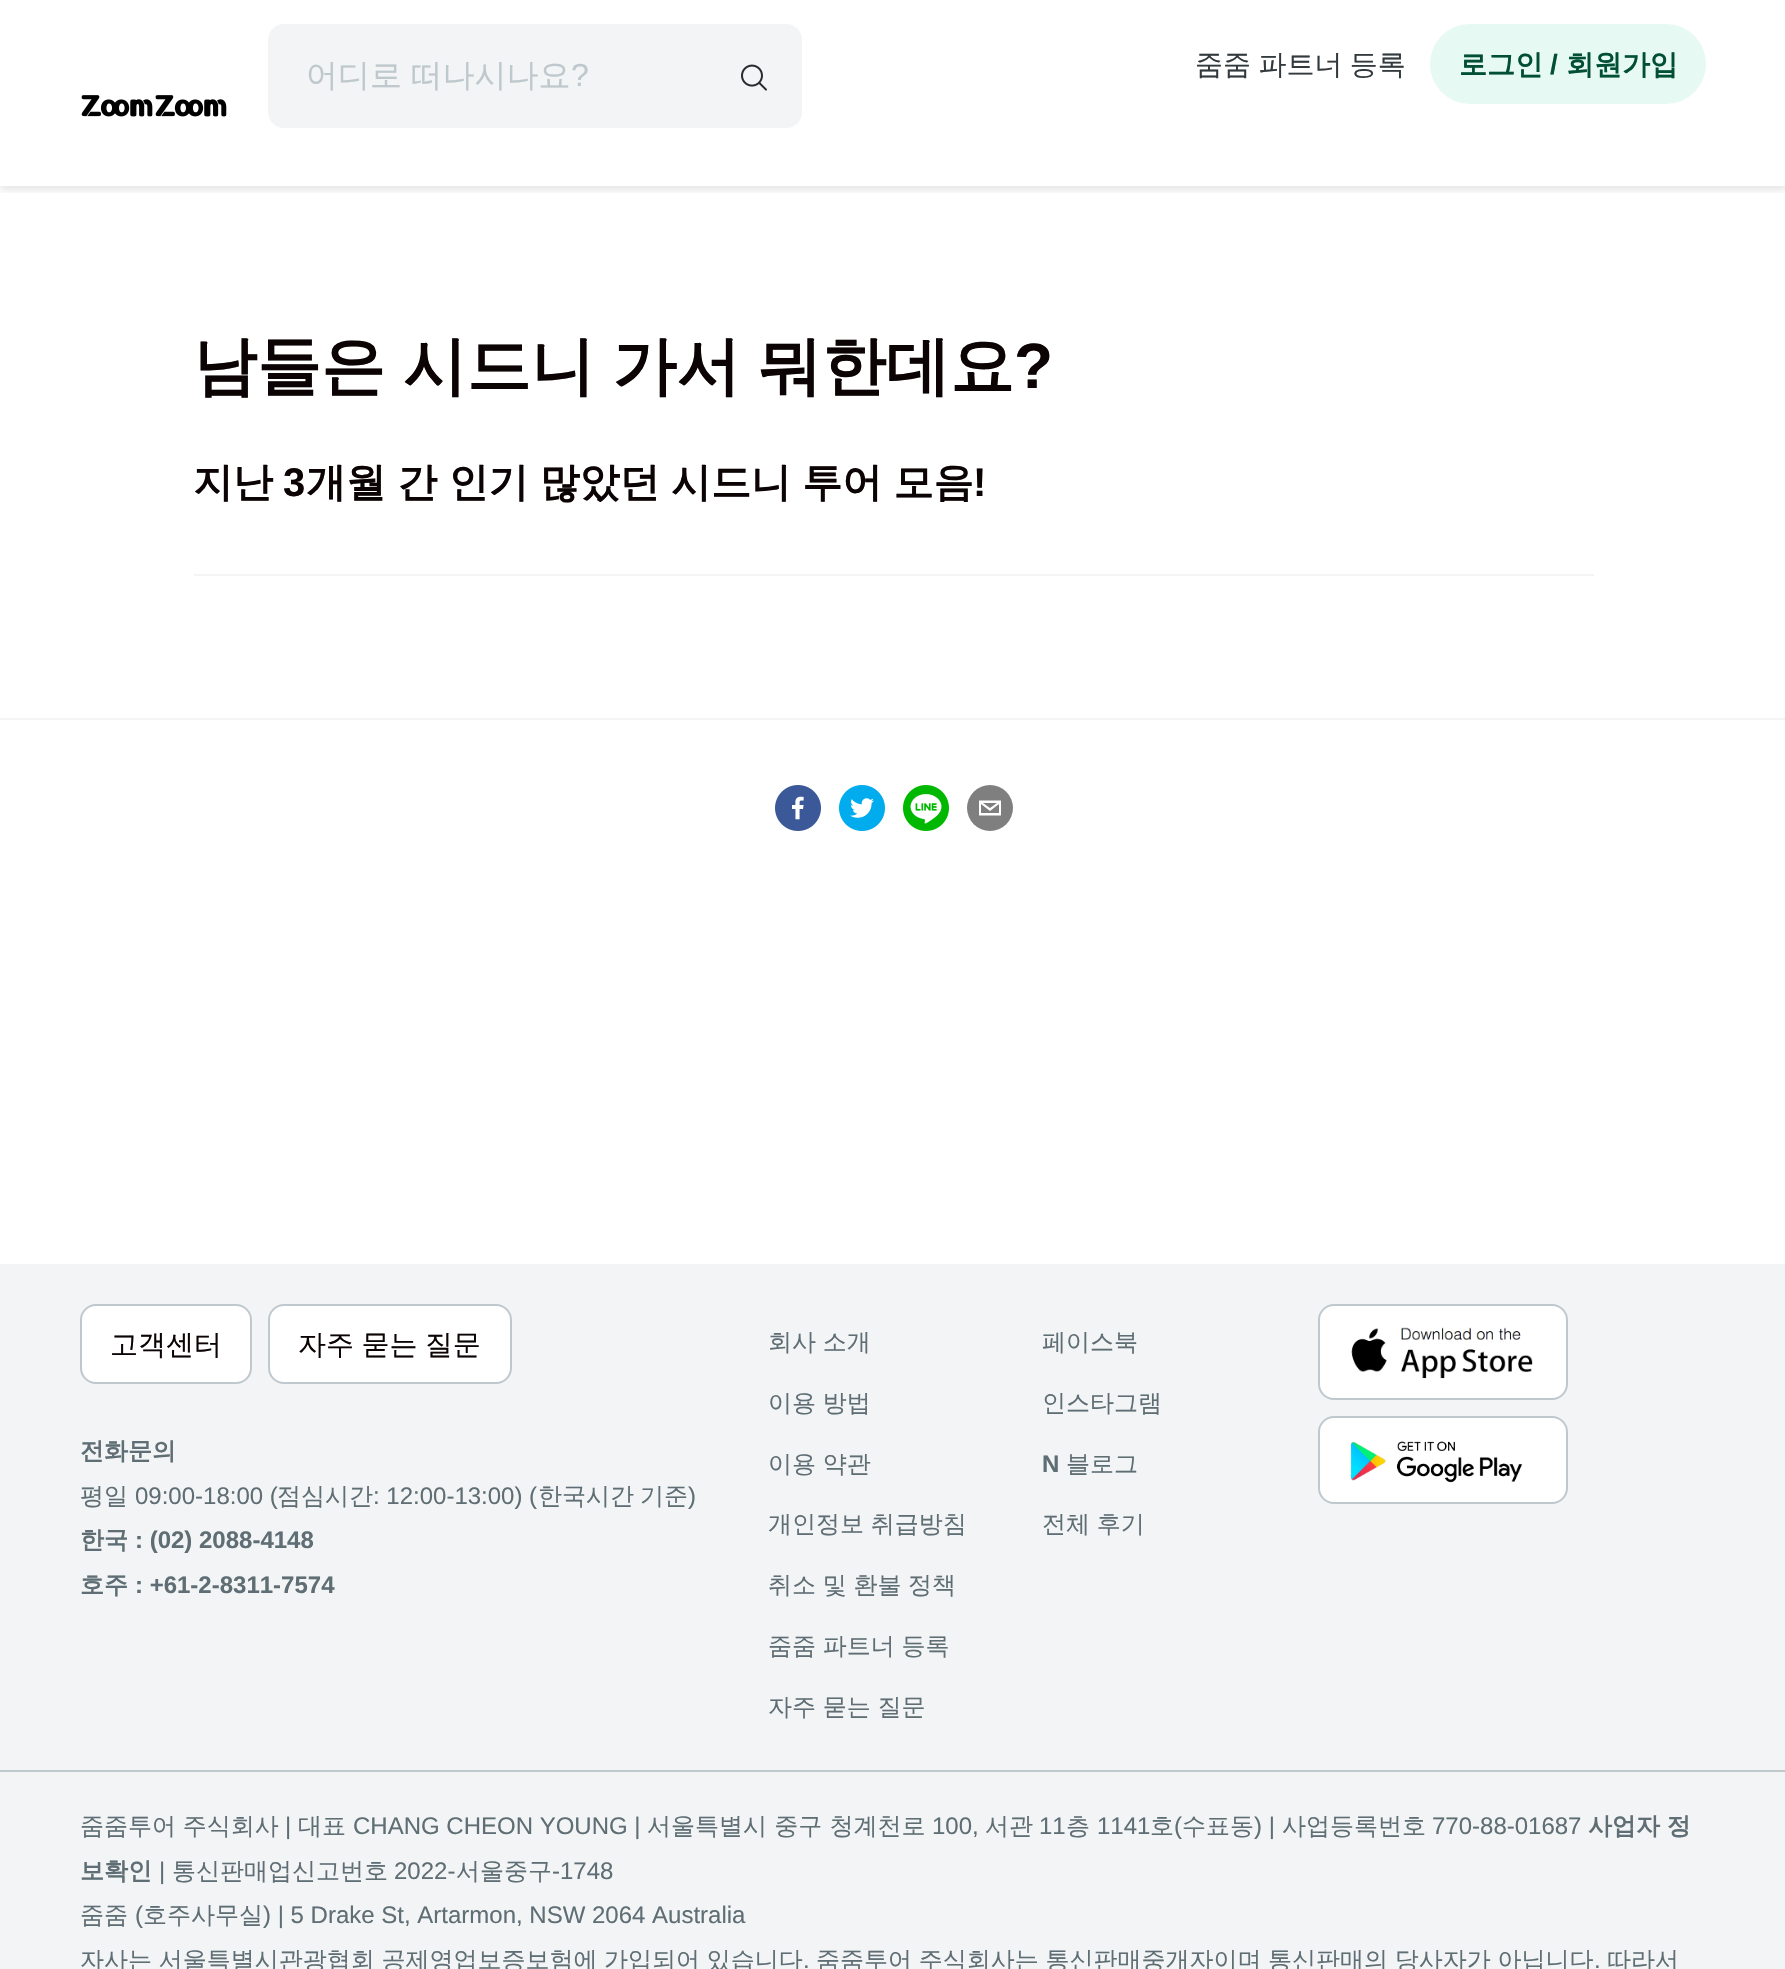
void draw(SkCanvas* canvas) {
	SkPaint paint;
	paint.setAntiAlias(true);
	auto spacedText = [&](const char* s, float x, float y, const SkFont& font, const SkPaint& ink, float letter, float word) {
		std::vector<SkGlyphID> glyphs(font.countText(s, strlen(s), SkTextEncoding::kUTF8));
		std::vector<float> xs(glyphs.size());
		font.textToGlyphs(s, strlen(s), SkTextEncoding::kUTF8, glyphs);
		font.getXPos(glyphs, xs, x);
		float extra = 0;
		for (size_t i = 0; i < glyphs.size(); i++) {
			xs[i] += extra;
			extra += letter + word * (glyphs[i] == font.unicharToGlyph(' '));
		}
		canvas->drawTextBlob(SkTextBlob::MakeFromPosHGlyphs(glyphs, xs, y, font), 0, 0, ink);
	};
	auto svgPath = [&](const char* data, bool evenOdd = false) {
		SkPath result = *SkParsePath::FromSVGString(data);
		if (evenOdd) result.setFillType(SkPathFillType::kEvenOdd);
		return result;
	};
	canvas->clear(0xffffffff);
	canvas->save();
	canvas->clipRect(SkRect::MakeXYWH(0, 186, 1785, 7));
	paint.setColor(0x1a000000);
	paint.setMaskFilter(SkMaskFilter::MakeBlur(kNormal_SkBlurStyle, 4));
	canvas->drawRect(SkRect::MakeXYWH(0, 4, 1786, 186), paint);
	paint.setMaskFilter(nullptr);
	canvas->restore();
	paint.setColor(0xfff2f4f5);
	canvas->drawRoundRect(SkRect::MakeXYWH(268, 24, 534, 104), 16, 16, paint);
	SkFont f1(fontMgr->matchFamilyStyle("WenQuanYi Zen Hei", SkFontStyle(500, SkFontStyle::kNormal_Width, SkFontStyle::kUpright_Slant)), 32);
	f1.setSubpixel(true);
	paint.setColor(0xffbfc9cd);
	spacedText("어디로 떠나시나요", 306, 86, f1, paint, 0, -1);
	SkFont f2(fontMgr->matchFamilyStyle("Liberation Sans", SkFontStyle::Normal()), 32);
	f2.setSubpixel(true);
	canvas->drawString("?", 571, 86, f2, paint);
	canvas->drawImageRect(SkImages::DeferredFromEncodedData(SkData::MakeFromFileName("img1.png")), SkRect::MakeXYWH(741, 64, 26, 27), SkSamplingOptions());
	canvas->drawImageRect(SkImages::DeferredFromEncodedData(SkData::MakeFromFileName("img2.png")), SkRect::MakeXYWH(81, 95, 146, 22), SkSamplingOptions());
	SkFont f3(fontMgr->matchFamilyStyle("WenQuanYi Zen Hei", SkFontStyle(500, SkFontStyle::kNormal_Width, SkFontStyle::kUpright_Slant)), 28);
	f3.setSubpixel(true);
	paint.setColor(0xff333a3e);
	spacedText("줌줌 파트너 등록", 1195, 74, f3, paint, 0, -1);
	paint.setColor(0xffe6f9f2);
	canvas->drawRoundRect(SkRect::MakeXYWH(1430, 24, 276, 80), 40, 40, paint);
	SkFont f4(fontMgr->matchFamilyStyle("WenQuanYi Zen Hei", SkFontStyle::Bold()), 28);
	f4.setSubpixel(true);
	paint.setColor(0xff014f34);
	canvas->drawString("로그인", 1459, 74, f4, paint);
	SkFont f5(fontMgr->matchFamilyStyle("Liberation Sans", SkFontStyle::Bold()), 28);
	f5.setSubpixel(true);
	canvas->drawString("/", 1550, 74, f5, paint);
	canvas->drawString("회원가입", 1566, 74, f4, paint);
	paint.setColor(0xfff2f4f5);
	canvas->drawRect(SkRect::MakeXYWH(194, 574, 1400, 2), paint);
	SkFont f6(fontMgr->matchFamilyStyle("WenQuanYi Zen Hei", SkFontStyle::Bold()), 64);
	f6.setSubpixel(true);
	paint.setColor(0xff0c0404);
	spacedText("남들은 시드니 가서 뭐한데요", 193, 388, f6, paint, 0, -1.5);
	SkFont f7(fontMgr->matchFamilyStyle("Liberation Sans", SkFontStyle::Bold()), 64);
	f7.setSubpixel(true);
	canvas->drawString("?", 1014, 388, f7, paint);
	SkFont f8(fontMgr->matchFamilyStyle("WenQuanYi Zen Hei", SkFontStyle::Bold()), 40);
	f8.setSubpixel(true);
	canvas->drawString("지난", 193, 496, f8, paint);
	SkFont f9(fontMgr->matchFamilyStyle("Liberation Sans", SkFontStyle::Bold()), 40);
	f9.setSubpixel(true);
	canvas->drawString("3", 283, 496, f9, paint);
	spacedText("개월 간 인기 많았던 시드니 투어 모음", 306, 496, f8, paint, 0, -0.75);
	canvas->drawString("!", 973, 496, f9, paint);
	paint.setColor(0xfff2f4f5);
	canvas->drawRect(SkRect::MakeXYWH(0, 718, 1785, 2), paint);
	canvas->drawImageRect(SkImages::DeferredFromEncodedData(SkData::MakeFromFileName("img3.png")), SkRect::MakeXYWH(775, 785, 46, 46), SkSamplingOptions());
	canvas->drawImageRect(SkImages::DeferredFromEncodedData(SkData::MakeFromFileName("img4.png")), SkRect::MakeXYWH(839, 785, 46, 46), SkSamplingOptions());
	canvas->drawImageRect(SkImages::DeferredFromEncodedData(SkData::MakeFromFileName("img5.png")), SkRect::MakeXYWH(903, 785, 46, 46), SkSamplingOptions());
	paint.setColor(0xff7f7f7f);
	canvas->drawCircle(990, 808, 23, paint);
	paint.setColor(0xffffffff);
	canvas->drawPath(svgPath("M979 800.5V815.5H1001V800.5ZM997 803L990 808L983 803ZM981 813V804L990 811L999 804V813Z"), paint);
	paint.setColor(0xfff2f4f5);
	canvas->drawRect(SkRect::MakeXYWH(0, 1264, 1785, 705), paint);
	paint.setColor(0xffffffff);
	canvas->drawRoundRect(SkRect::MakeXYWH(81, 1305, 170, 78), 15, 15, paint);
	paint.setStroke(true);
	paint.setStrokeWidth(2);
	paint.setColor(0xffbfc9cd);
	canvas->drawRoundRect(SkRect::MakeXYWH(81, 1305, 170, 78), 15, 15, paint);
	paint.setStroke(false);
	paint.setColor(0xff0c0404);
	canvas->drawString("고객센터", 110, 1354, f3, paint);
	paint.setColor(0xffffffff);
	canvas->drawRoundRect(SkRect::MakeXYWH(269, 1305, 242, 78), 15, 15, paint);
	paint.setStroke(true);
	paint.setColor(0xffbfc9cd);
	canvas->drawRoundRect(SkRect::MakeXYWH(269, 1305, 242, 78), 15, 15, paint);
	paint.setStroke(false);
	paint.setColor(0xff0c0404);
	spacedText("자주 묻는 질문", 298, 1354, f3, paint, 0, -1);
	SkFont f10(fontMgr->matchFamilyStyle("WenQuanYi Zen Hei", SkFontStyle::Bold()), 24);
	f10.setSubpixel(true);
	paint.setColor(0xff5f6e74);
	canvas->drawString("전화문의", 80, 1459, f10, paint);
	SkFont f11(fontMgr->matchFamilyStyle("WenQuanYi Zen Hei", SkFontStyle(500, SkFontStyle::kNormal_Width, SkFontStyle::kUpright_Slant)), 24);
	f11.setSubpixel(true);
	canvas->drawString("평일", 80, 1504, f11, paint);
	SkFont f12(fontMgr->matchFamilyStyle("Liberation Sans", SkFontStyle::Normal()), 24);
	f12.setSubpixel(true);
	canvas->drawString("09:00-18:00 (", 135, 1504, f12, paint);
	canvas->drawString("점심시간", 277, 1504, f11, paint);
	canvas->drawString(": 12:00-13:00) (", 373, 1504, f12, paint);
	canvas->drawString("한국시간", 538, 1504, f11, paint);
	canvas->drawString("기준", 640, 1504, f11, paint);
	canvas->drawString(")", 688, 1504, f12, paint);
	canvas->drawString("한국", 80, 1548, f10, paint);
	SkFont f13(fontMgr->matchFamilyStyle("Liberation Sans", SkFontStyle::Bold()), 24);
	f13.setSubpixel(true);
	canvas->drawString(": (02) 2088-4148", 135, 1548, f13, paint);
	canvas->drawString("호주", 80, 1593, f10, paint);
	canvas->drawString(": +61-2-8311-7574", 135, 1593, f13, paint);
	spacedText("회사 소개", 768, 1350, f11, paint, 0, -0.5);
	spacedText("이용 방법", 768, 1411, f11, paint, 0, -0.5);
	spacedText("이용 약관", 768, 1472, f11, paint, 0, -0.5);
	spacedText("개인정보 취급방침", 768, 1532, f11, paint, 0, -0.5);
	spacedText("취소 및 환불 정책", 768, 1593, f11, paint, 0, -0.5);
	spacedText("줌줌 파트너 등록", 768, 1654, f11, paint, 0, -0.5);
	spacedText("자주 묻는 질문", 768, 1715, f11, paint, 0, -0.5);
	canvas->drawString("페이스북", 1042, 1350, f11, paint);
	canvas->drawString("인스타그램", 1042, 1411, f11, paint);
	canvas->drawString("N", 1042, 1472, f13, paint);
	canvas->drawString("블로그", 1066, 1472, f11, paint);
	spacedText("전체 후기", 1042, 1532, f11, paint, 0, -0.5);
	paint.setColor(0xffffffff);
	canvas->drawRoundRect(SkRect::MakeXYWH(1319, 1305, 248, 94), 15, 15, paint);
	paint.setStroke(true);
	paint.setColor(0xffbfc9cd);
	canvas->drawRoundRect(SkRect::MakeXYWH(1319, 1305, 248, 94), 15, 15, paint);
	canvas->drawImageRect(SkImages::DeferredFromEncodedData(SkData::MakeFromFileName("img6.png")), SkRect::MakeXYWH(1351, 1327, 182, 52), SkSamplingOptions());
	paint.setStroke(false);
	paint.setColor(0xffffffff);
	canvas->drawRoundRect(SkRect::MakeXYWH(1319, 1417, 248, 86), 15, 15, paint);
	paint.setStroke(true);
	paint.setColor(0xffbfc9cd);
	canvas->drawRoundRect(SkRect::MakeXYWH(1319, 1417, 248, 86), 15, 15, paint);
	canvas->drawImageRect(SkImages::DeferredFromEncodedData(SkData::MakeFromFileName("img7.png")), SkRect::MakeXYWH(1351, 1441, 172, 42), SkSamplingOptions());
	paint.setStroke(false);
	canvas->drawRect(SkRect::MakeXYWH(0, 1770, 1785, 2), paint);
	paint.setColor(0xff5f6e74);
	spacedText("줌줌투어 주식회사", 80, 1834, f11, paint, 0, -0.5);
	canvas->drawString("|", 285, 1834, f12, paint);
	canvas->drawString("대표", 298, 1834, f11, paint);
	canvas->drawString("CHANG CHEON YOUNG |", 353, 1834, f12, paint);
	canvas->drawString("서울특별시 중구 청계천로", 647, 1834, f11, paint);
	canvas->drawString("100,", 932, 1834, f12, paint);
	canvas->drawString("서관", 985, 1834, f11, paint);
	canvas->drawString("11", 1039, 1834, f12, paint);
	canvas->drawString("층", 1066, 1834, f11, paint);
	canvas->drawString("1141", 1097, 1834, f12, paint);
	canvas->drawString("호", 1150, 1834, f11, paint);
	canvas->drawString("(", 1174, 1834, f12, paint);
	canvas->drawString("수표동", 1182, 1834, f11, paint);
	canvas->drawString(") |", 1254, 1834, f12, paint);
	canvas->drawString("사업등록번호", 1282, 1834, f11, paint);
	canvas->drawString("770-88-01687", 1432, 1834, f12, paint);
	spacedText("사업자 정", 1588, 1834, f10, paint, 0, -0.5);
	canvas->drawString("보확인", 80, 1879, f10, paint);
	canvas->drawString("|", 159, 1879, f12, paint);
	canvas->drawString("통신판매업신고번호", 172, 1879, f11, paint);
	canvas->drawString("2022-", 394, 1879, f12, paint);
	canvas->drawString("서울중구", 456, 1879, f11, paint);
	canvas->drawString("-1748", 552, 1879, f12, paint);
	canvas->drawString("줌줌", 80, 1923, f11, paint);
	canvas->drawString("(", 135, 1923, f12, paint);
	canvas->drawString("호주사무실", 143, 1923, f11, paint);
	canvas->drawString(") | 5 Drake St, Artarmon, NSW 2064 Australia", 263, 1923, f12, paint);
	spacedText("자사는 서울특별시관광협회 공제영업보증보험에 가입되어 있습니다", 80, 1968, f11, paint, 0, -0.5);
	canvas->drawString(".", 803, 1968, f12, paint);
	spacedText("줌줌투어 주식회사는 통신판매중개자이며 통신판매의 당사자가 아닙니다", 816, 1968, f11, paint, 0, -0.5);
	canvas->drawString(".", 1594, 1968, f12, paint);
	canvas->drawString("따라서", 1607, 1968, f11, paint);
}
